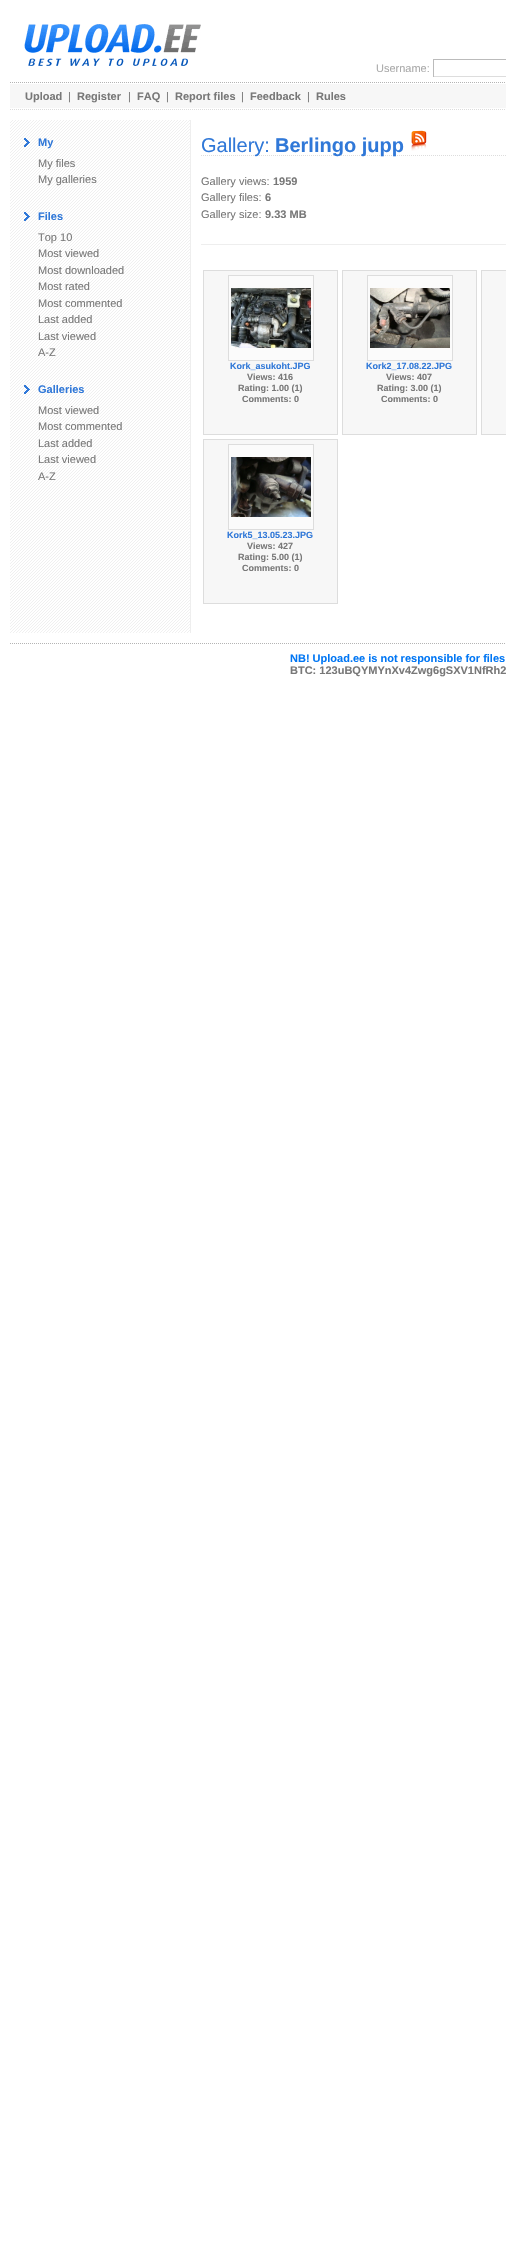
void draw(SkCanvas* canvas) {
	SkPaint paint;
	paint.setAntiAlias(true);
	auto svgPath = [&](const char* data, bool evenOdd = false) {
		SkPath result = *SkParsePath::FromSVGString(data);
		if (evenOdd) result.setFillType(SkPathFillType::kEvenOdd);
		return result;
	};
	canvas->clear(0xffffffff);
	canvas->drawImageRect(SkImages::DeferredFromEncodedData(SkData::MakeFromFileName("img1.png")), SkRect::MakeXYWH(24, 24, 177, 42), SkSamplingOptions());
	SkFont f1(fontMgr->matchFamilyStyle("Liberation Sans", SkFontStyle::Normal()), 11);
	f1.setSubpixel(true);
	paint.setColor(0xffaaaaaa);
	canvas->drawString("Username:", 376, 72, f1, paint);
	paint.setColor(0xffbbbbbb);
	canvas->drawRect(SkRect::MakeXYWH(433, 59, 73, 1), paint);
	paint.setColor(0xffdddddd);
	canvas->drawRect(SkRect::MakeXYWH(433, 76, 73, 1), paint);
	paint.setColor(0xffbbbbbb);
	canvas->drawRect(SkRect::MakeXYWH(433, 59, 1, 18), paint);
	canvas->drawImageRect(SkImages::DeferredFromEncodedData(SkData::MakeFromFileName("img2.png")), SkRect::MakeXYWH(10, 82, 495, 1), SkSamplingOptions());
	paint.setColor(0xfff7f7f7);
	canvas->drawRect(SkRect::MakeXYWH(10, 84, 496, 24), paint);
	SkFont f2(fontMgr->matchFamilyStyle("Liberation Sans", SkFontStyle::Bold()), 11);
	f2.setSubpixel(true);
	paint.setColor(0xff787878);
	canvas->drawString("Upload", 25, 100, f2, paint);
	canvas->drawString("|", 68, 100, f1, paint);
	canvas->drawString("Register", 77, 100, f2, paint);
	canvas->drawString("|", 128, 100, f1, paint);
	canvas->drawString("FAQ", 137, 100, f2, paint);
	canvas->drawString("|", 166, 100, f1, paint);
	canvas->drawString("Report files", 175, 100, f2, paint);
	canvas->drawString("|", 241, 100, f1, paint);
	canvas->drawString("Feedback", 250, 100, f2, paint);
	canvas->drawString("|", 307, 100, f1, paint);
	canvas->drawString("Rules", 316, 100, f2, paint);
	canvas->drawImageRect(SkImages::DeferredFromEncodedData(SkData::MakeFromFileName("img3.png")), SkRect::MakeXYWH(10, 109, 495, 1), SkSamplingOptions());
	canvas->drawImageRect(SkImages::DeferredFromEncodedData(SkData::MakeFromFileName("img4.png")), SkRect::MakeXYWH(10, 120, 180, 513), SkSamplingOptions());
	paint.setColor(0xffeeeeee);
	canvas->drawRect(SkRect::MakeXYWH(190, 120, 1, 513), paint);
	canvas->drawImageRect(SkImages::DeferredFromEncodedData(SkData::MakeFromFileName("img5.png")), SkRect::MakeXYWH(24, 138, 6, 9), SkSamplingOptions());
	paint.setColor(0xff3078d8);
	canvas->drawString("My", 38, 146, f2, paint);
	paint.setColor(0xff787878);
	canvas->drawString("My files", 38, 167, f1, paint);
	canvas->drawString("My galleries", 38, 183, f1, paint);
	canvas->drawImageRect(SkImages::DeferredFromEncodedData(SkData::MakeFromFileName("img6.png")), SkRect::MakeXYWH(24, 212, 6, 9), SkSamplingOptions());
	paint.setColor(0xff3078d8);
	canvas->drawString("Files", 38, 220, f2, paint);
	paint.setColor(0xff787878);
	canvas->drawString("Top 10", 38, 241, f1, paint);
	canvas->drawString("Most viewed", 38, 257, f1, paint);
	canvas->drawString("Most downloaded", 38, 274, f1, paint);
	canvas->drawString("Most rated", 38, 290, f1, paint);
	canvas->drawString("Most commented", 38, 307, f1, paint);
	canvas->drawString("Last added", 38, 323, f1, paint);
	canvas->drawString("Last viewed", 38, 340, f1, paint);
	canvas->drawString("A-Z", 38, 356, f1, paint);
	canvas->drawImageRect(SkImages::DeferredFromEncodedData(SkData::MakeFromFileName("img7.png")), SkRect::MakeXYWH(24, 385, 6, 9), SkSamplingOptions());
	paint.setColor(0xff3078d8);
	canvas->drawString("Galleries", 38, 393, f2, paint);
	paint.setColor(0xff787878);
	canvas->drawString("Most viewed", 38, 414, f1, paint);
	canvas->drawString("Most commented", 38, 430, f1, paint);
	canvas->drawString("Last added", 38, 447, f1, paint);
	canvas->drawString("Last viewed", 38, 463, f1, paint);
	canvas->drawString("A-Z", 38, 480, f1, paint);
	paint.setStroke(true);
	paint.setStrokeWidth(1);
	paint.setColor(0xffdddddd);
	paint.setPathEffect(SkDashPathEffect::Make({{1, 1}}, 0));
	canvas->drawPath(svgPath("M201 155.5H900"), paint);
	paint.setPathEffect(nullptr);
	SkFont f3(fontMgr->matchFamilyStyle("Liberation Sans", SkFontStyle::Normal()), 20);
	f3.setSubpixel(true);
	paint.setStroke(false);
	paint.setColor(0xff3078d8);
	canvas->drawString("Gallery:", 201, 152, f3, paint);
	SkFont f4(fontMgr->matchFamilyStyle("Liberation Sans", SkFontStyle::Bold()), 20);
	f4.setSubpixel(true);
	canvas->drawString("Berlingo jupp", 275, 152, f4, paint);
	canvas->drawImageRect(SkImages::DeferredFromEncodedData(SkData::MakeFromFileName("img8.png")), SkRect::MakeXYWH(411, 130, 16, 21), SkSamplingOptions());
	paint.setColor(0xff787878);
	canvas->drawString("Gallery views:", 201, 185, f1, paint);
	canvas->drawString("1959", 273, 185, f2, paint);
	canvas->drawString("Gallery files:", 201, 201, f1, paint);
	canvas->drawString("6", 265, 201, f2, paint);
	canvas->drawString("Gallery size:", 201, 218, f1, paint);
	canvas->drawString("9.33 MB", 265, 218, f2, paint);
	paint.setColor(0xffeeeeee);
	canvas->drawRect(SkRect::MakeXYWH(201, 244, 305, 1), paint);
	paint.setColor(0xfff7f7f7);
	canvas->drawRect(SkRect::MakeXYWH(203.5, 270.5, 134, 164), paint);
	paint.setStroke(true);
	paint.setColor(0xffdddddd);
	canvas->drawRect(SkRect::MakeXYWH(203.5, 270.5, 134, 164), paint);
	paint.setStroke(false);
	paint.setColor(0xfffbfbfb);
	canvas->drawRect(SkRect::MakeXYWH(228.5, 275.5, 85, 85), paint);
	paint.setStroke(true);
	paint.setColor(0xffdddddd);
	canvas->drawRect(SkRect::MakeXYWH(228.5, 275.5, 85, 85), paint);
	canvas->drawImageRect(SkImages::DeferredFromEncodedData(SkData::MakeFromFileName("img9.png")), SkRect::MakeXYWH(231, 288, 80, 60), SkSamplingOptions());
	SkFont f5(fontMgr->matchFamilyStyle("Liberation Sans", SkFontStyle::Bold()), 9);
	f5.setSubpixel(true);
	paint.setStroke(false);
	paint.setColor(0xff3078d8);
	canvas->drawString("Kork_asukoht.JPG", 230, 369, f5, paint);
	paint.setColor(0xff787878);
	canvas->drawString("Views: 416", 247, 380, f5, paint);
	canvas->drawString("Rating: 1.00 (1)", 238, 391, f5, paint);
	canvas->drawString("Comments: 0", 242, 402, f5, paint);
	paint.setColor(0xfff7f7f7);
	canvas->drawRect(SkRect::MakeXYWH(342.5, 270.5, 134, 164), paint);
	paint.setStroke(true);
	paint.setColor(0xffdddddd);
	canvas->drawRect(SkRect::MakeXYWH(342.5, 270.5, 134, 164), paint);
	paint.setStroke(false);
	paint.setColor(0xfffbfbfb);
	canvas->drawRect(SkRect::MakeXYWH(367.5, 275.5, 85, 85), paint);
	paint.setStroke(true);
	paint.setColor(0xffdddddd);
	canvas->drawRect(SkRect::MakeXYWH(367.5, 275.5, 85, 85), paint);
	canvas->drawImageRect(SkImages::DeferredFromEncodedData(SkData::MakeFromFileName("img10.png")), SkRect::MakeXYWH(370, 288, 80, 60), SkSamplingOptions());
	paint.setStroke(false);
	paint.setColor(0xff3078d8);
	canvas->drawString("Kork2_17.08.22.JPG", 366, 369, f5, paint);
	paint.setColor(0xff787878);
	canvas->drawString("Views: 407", 386, 380, f5, paint);
	canvas->drawString("Rating: 3.00 (1)", 377, 391, f5, paint);
	canvas->drawString("Comments: 0", 381, 402, f5, paint);
	paint.setColor(0xfff7f7f7);
	canvas->drawRect(SkRect::MakeXYWH(481.5, 270.5, 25, 164), paint);
	paint.setStroke(true);
	paint.setColor(0xffdddddd);
	canvas->drawRect(SkRect::MakeXYWH(481.5, 270.5, 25, 164), paint);
	paint.setStroke(false);
	paint.setColor(0xfff7f7f7);
	canvas->drawRect(SkRect::MakeXYWH(203.5, 439.5, 134, 164), paint);
	paint.setStroke(true);
	paint.setColor(0xffdddddd);
	canvas->drawRect(SkRect::MakeXYWH(203.5, 439.5, 134, 164), paint);
	paint.setStroke(false);
	paint.setColor(0xfffbfbfb);
	canvas->drawRect(SkRect::MakeXYWH(228.5, 444.5, 85, 85), paint);
	paint.setStroke(true);
	paint.setColor(0xffdddddd);
	canvas->drawRect(SkRect::MakeXYWH(228.5, 444.5, 85, 85), paint);
	canvas->drawImageRect(SkImages::DeferredFromEncodedData(SkData::MakeFromFileName("img11.png")), SkRect::MakeXYWH(231, 457, 80, 60), SkSamplingOptions());
	paint.setStroke(false);
	paint.setColor(0xff3078d8);
	canvas->drawString("Kork5_13.05.23.JPG", 227, 538, f5, paint);
	paint.setColor(0xff787878);
	canvas->drawString("Views: 427", 247, 549, f5, paint);
	canvas->drawString("Rating: 5.00 (1)", 238, 560, f5, paint);
	canvas->drawString("Comments: 0", 242, 571, f5, paint);
	canvas->drawImageRect(SkImages::DeferredFromEncodedData(SkData::MakeFromFileName("img2.png")), SkRect::MakeXYWH(10, 643, 495, 1), SkSamplingOptions());
	paint.setColor(0xff0076f4);
	canvas->drawString("NB! Upload.ee is not responsible for files", 290, 662, f2, paint);
	paint.setColor(0xff787878);
	canvas->drawString("BTC: 123uBQYMYnXv4Zwg6gSXV1NfRh2", 290, 674, f2, paint);
}
